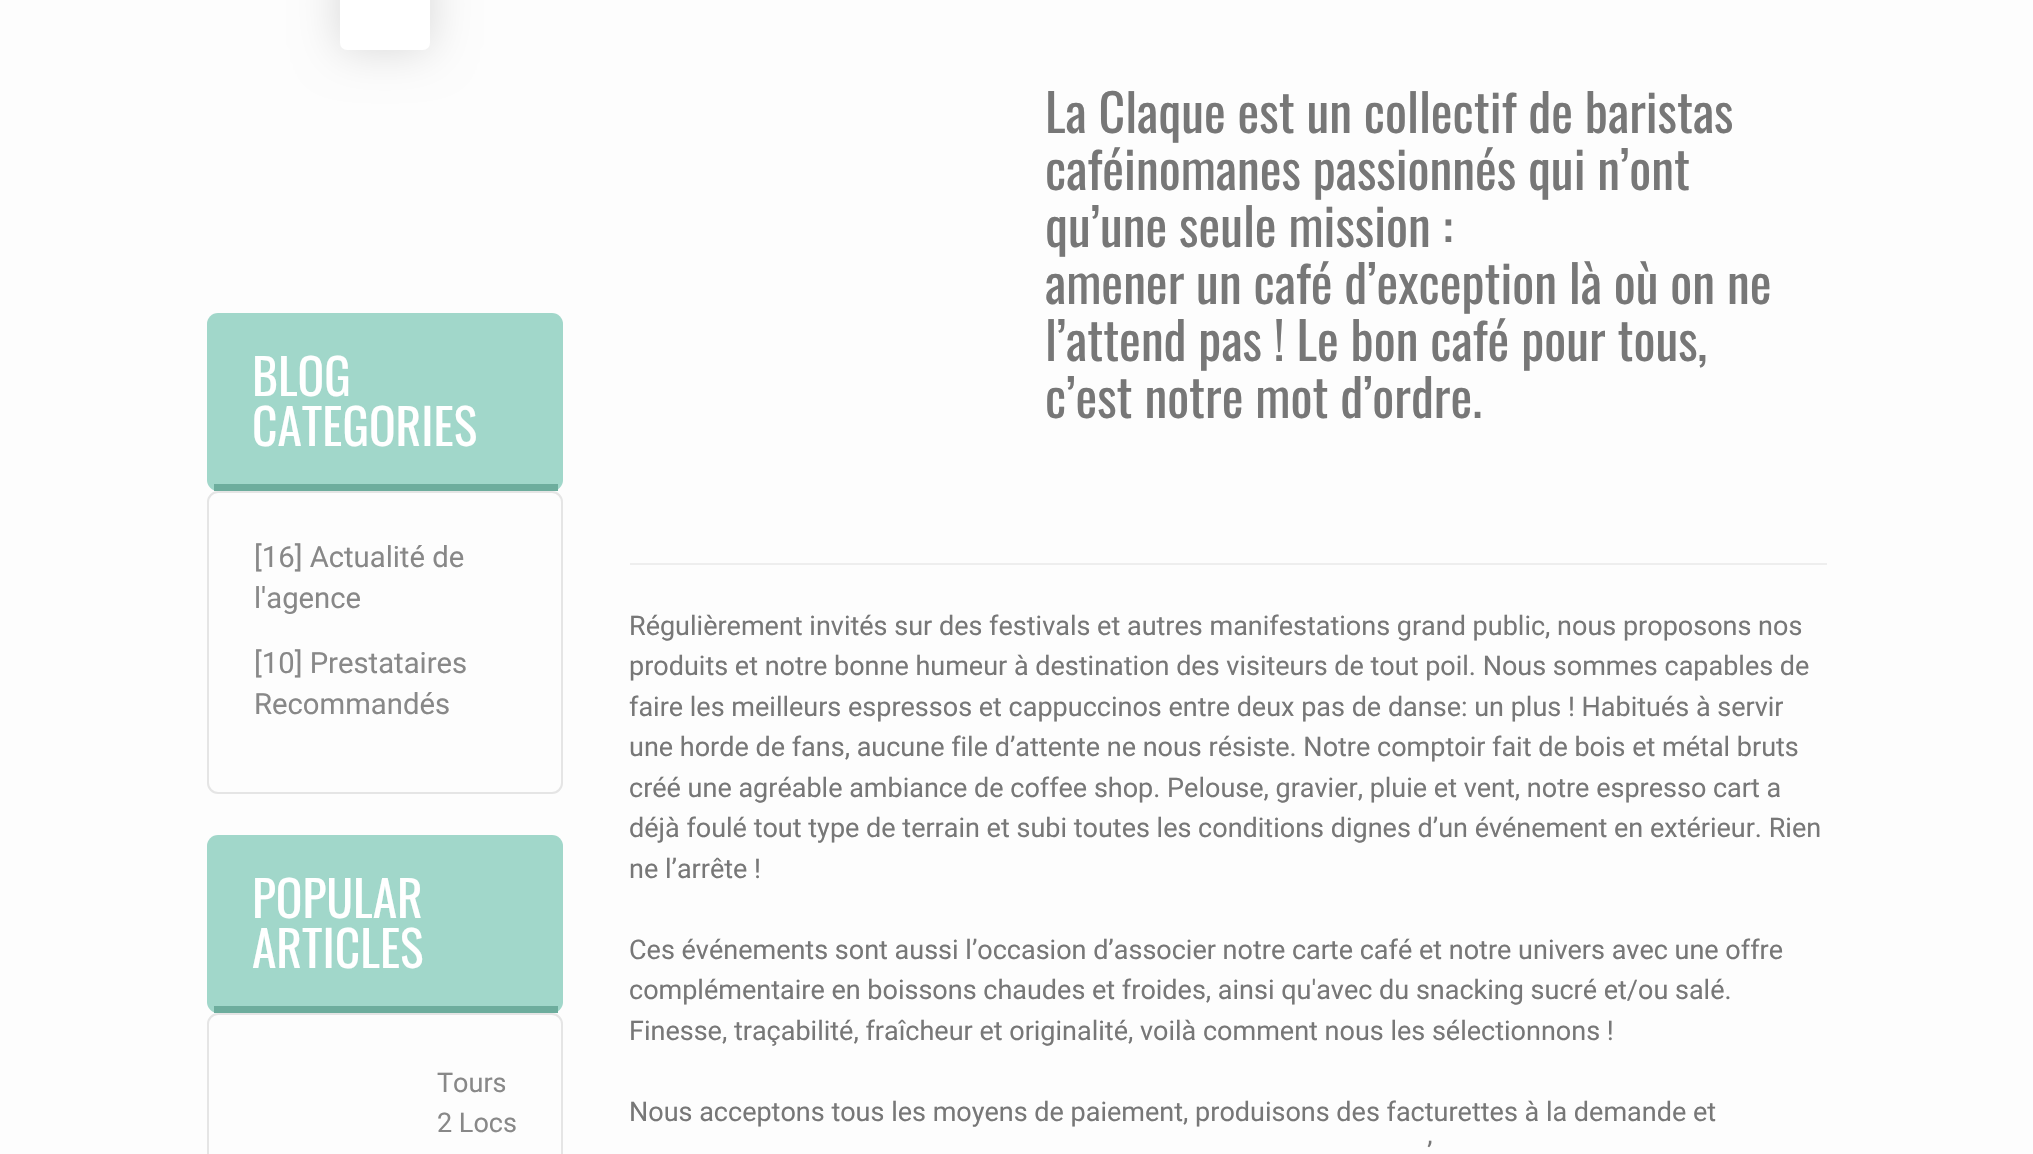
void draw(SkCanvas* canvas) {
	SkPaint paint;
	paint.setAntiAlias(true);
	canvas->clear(0xfffdfdfd);
	paint.setColor(0x26000000);
	paint.setMaskFilter(SkMaskFilter::MakeBlur(kNormal_SkBlurStyle, 22.5));
	canvas->drawRoundRect(SkRect::MakeXYWH(340, -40, 90, 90), 7, 7, paint);
	paint.setMaskFilter(nullptr);
	paint.setColor(0xffffffff);
	canvas->drawRoundRect(SkRect::MakeXYWH(340, -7, 90, 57), 7, 7, paint);
	paint.setColor(0xffa1d7ca);
	canvas->drawRoundRect(SkRect::MakeXYWH(207, 313, 356, 178), 11, 11, paint);
	paint.setColor(0xff6dad9d);
	canvas->drawRect(SkRect::MakeXYWH(214, 484, 344, 7), paint);
	SkFont f1(fontMgr->matchFamilyStyle("Oswald", SkFontStyle::Normal()), 49.5);
	f1.setSubpixel(true);
	paint.setColor(0xffffffff);
	canvas->drawString("BLOG", 252, 396, f1, paint);
	canvas->drawString("CATEGORIES", 252, 446, f1, paint);
	paint.setStroke(true);
	paint.setStrokeWidth(2);
	paint.setColor(0xffe5e5e5);
	canvas->drawRoundRect(SkRect::MakeXYWH(208, 492, 354, 301), 10, 10, paint);
	SkFont f2(fontMgr->matchFamilyStyle("Roboto", SkFontStyle::Normal()), 29.25);
	f2.setSubpixel(true);
	paint.setStroke(false);
	paint.setColor(0xff888888);
	canvas->drawString("[16] Actualité de", 254, 567, f2, paint);
	canvas->drawString("l'agence", 254, 608, f2, paint);
	canvas->drawString("[10] Prestataires", 254, 673, f2, paint);
	canvas->drawString("Recommandés", 254, 714, f2, paint);
	paint.setColor(0xffa1d7ca);
	canvas->drawRoundRect(SkRect::MakeXYWH(207, 835, 356, 178), 11, 11, paint);
	paint.setColor(0xff6dad9d);
	canvas->drawRect(SkRect::MakeXYWH(214, 1006, 344, 7), paint);
	paint.setColor(0xffffffff);
	canvas->drawString("POPULAR", 252, 918, f1, paint);
	canvas->drawString("ARTICLES", 252, 968, f1, paint);
	paint.setStroke(true);
	paint.setColor(0xffe5e5e5);
	canvas->drawRoundRect(SkRect::MakeXYWH(208, 1014, 354, 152), 10, 10, paint);
	SkFont f3(fontMgr->matchFamilyStyle("Roboto", SkFontStyle::Normal()), 27);
	f3.setSubpixel(true);
	paint.setStroke(false);
	paint.setColor(0xff888888);
	canvas->drawString("Tours", 437, 1092, f3, paint);
	canvas->drawString("2 Locs", 437, 1132, f3, paint);
	SkFont f4(fontMgr->matchFamilyStyle("Oswald", SkFontStyle::Normal()), 51.75);
	f4.setSubpixel(true);
	paint.setColor(0xff777777);
	canvas->drawString("La Claque est un collectif de baristas", 1045, 133, f4, paint);
	canvas->drawString("caféinomanes passionnés qui n’ont", 1045, 190, f4, paint);
	canvas->drawString("qu’une seule mission :", 1045, 247, f4, paint);
	canvas->drawString("amener un café d’exception là où on ne", 1045, 304, f4, paint);
	canvas->drawString("l’attend pas ! Le bon café pour tous,", 1045, 361, f4, paint);
	canvas->drawString("c’est notre mot d’ordre.", 1045, 418, f4, paint);
	paint.setColor(0xffeeeeee);
	canvas->drawRect(SkRect::MakeXYWH(630, 563, 1197, 2), paint);
	paint.setColor(0xff777777);
	canvas->drawString("Régulièrement invités sur des festivals et autres manifestations grand public, nous proposons nos", 629, 635, f3, paint);
	canvas->drawString("produits et notre bonne humeur à destination des visiteurs de tout poil. Nous sommes capables de", 629, 675, f3, paint);
	canvas->drawString("faire les meilleurs espressos et cappuccinos entre deux pas de danse: un plus ! Habitués à servir", 629, 716, f3, paint);
	canvas->drawString("une horde de fans, aucune file d’attente ne nous résiste. Notre comptoir fait de bois et métal bruts", 629, 756, f3, paint);
	canvas->drawString("créé une agréable ambiance de coffee shop. Pelouse, gravier, pluie et vent, notre espresso cart a", 629, 797, f3, paint);
	canvas->drawString("déjà foulé tout type de terrain et subi toutes les conditions dignes d’un événement en extérieur. Rien", 629, 837, f3, paint);
	canvas->drawString("ne l’arrête !", 629, 878, f3, paint);
	canvas->drawString("Ces événements sont aussi l’occasion d’associer notre carte café et notre univers avec une offre", 629, 959, f3, paint);
	canvas->drawString("complémentaire en boissons chaudes et froides, ainsi qu'avec du snacking sucré et/ou salé.", 629, 999, f3, paint);
	canvas->drawString("Finesse, traçabilité, fraîcheur et originalité, voilà comment nous les sélectionnons !", 629, 1040, f3, paint);
	canvas->drawString("Nous acceptons tous les moyens de paiement, produisons des facturettes à la demande et", 629, 1121, f3, paint);
	canvas->drawString("’", 1427, 1161, f3, paint);
}
